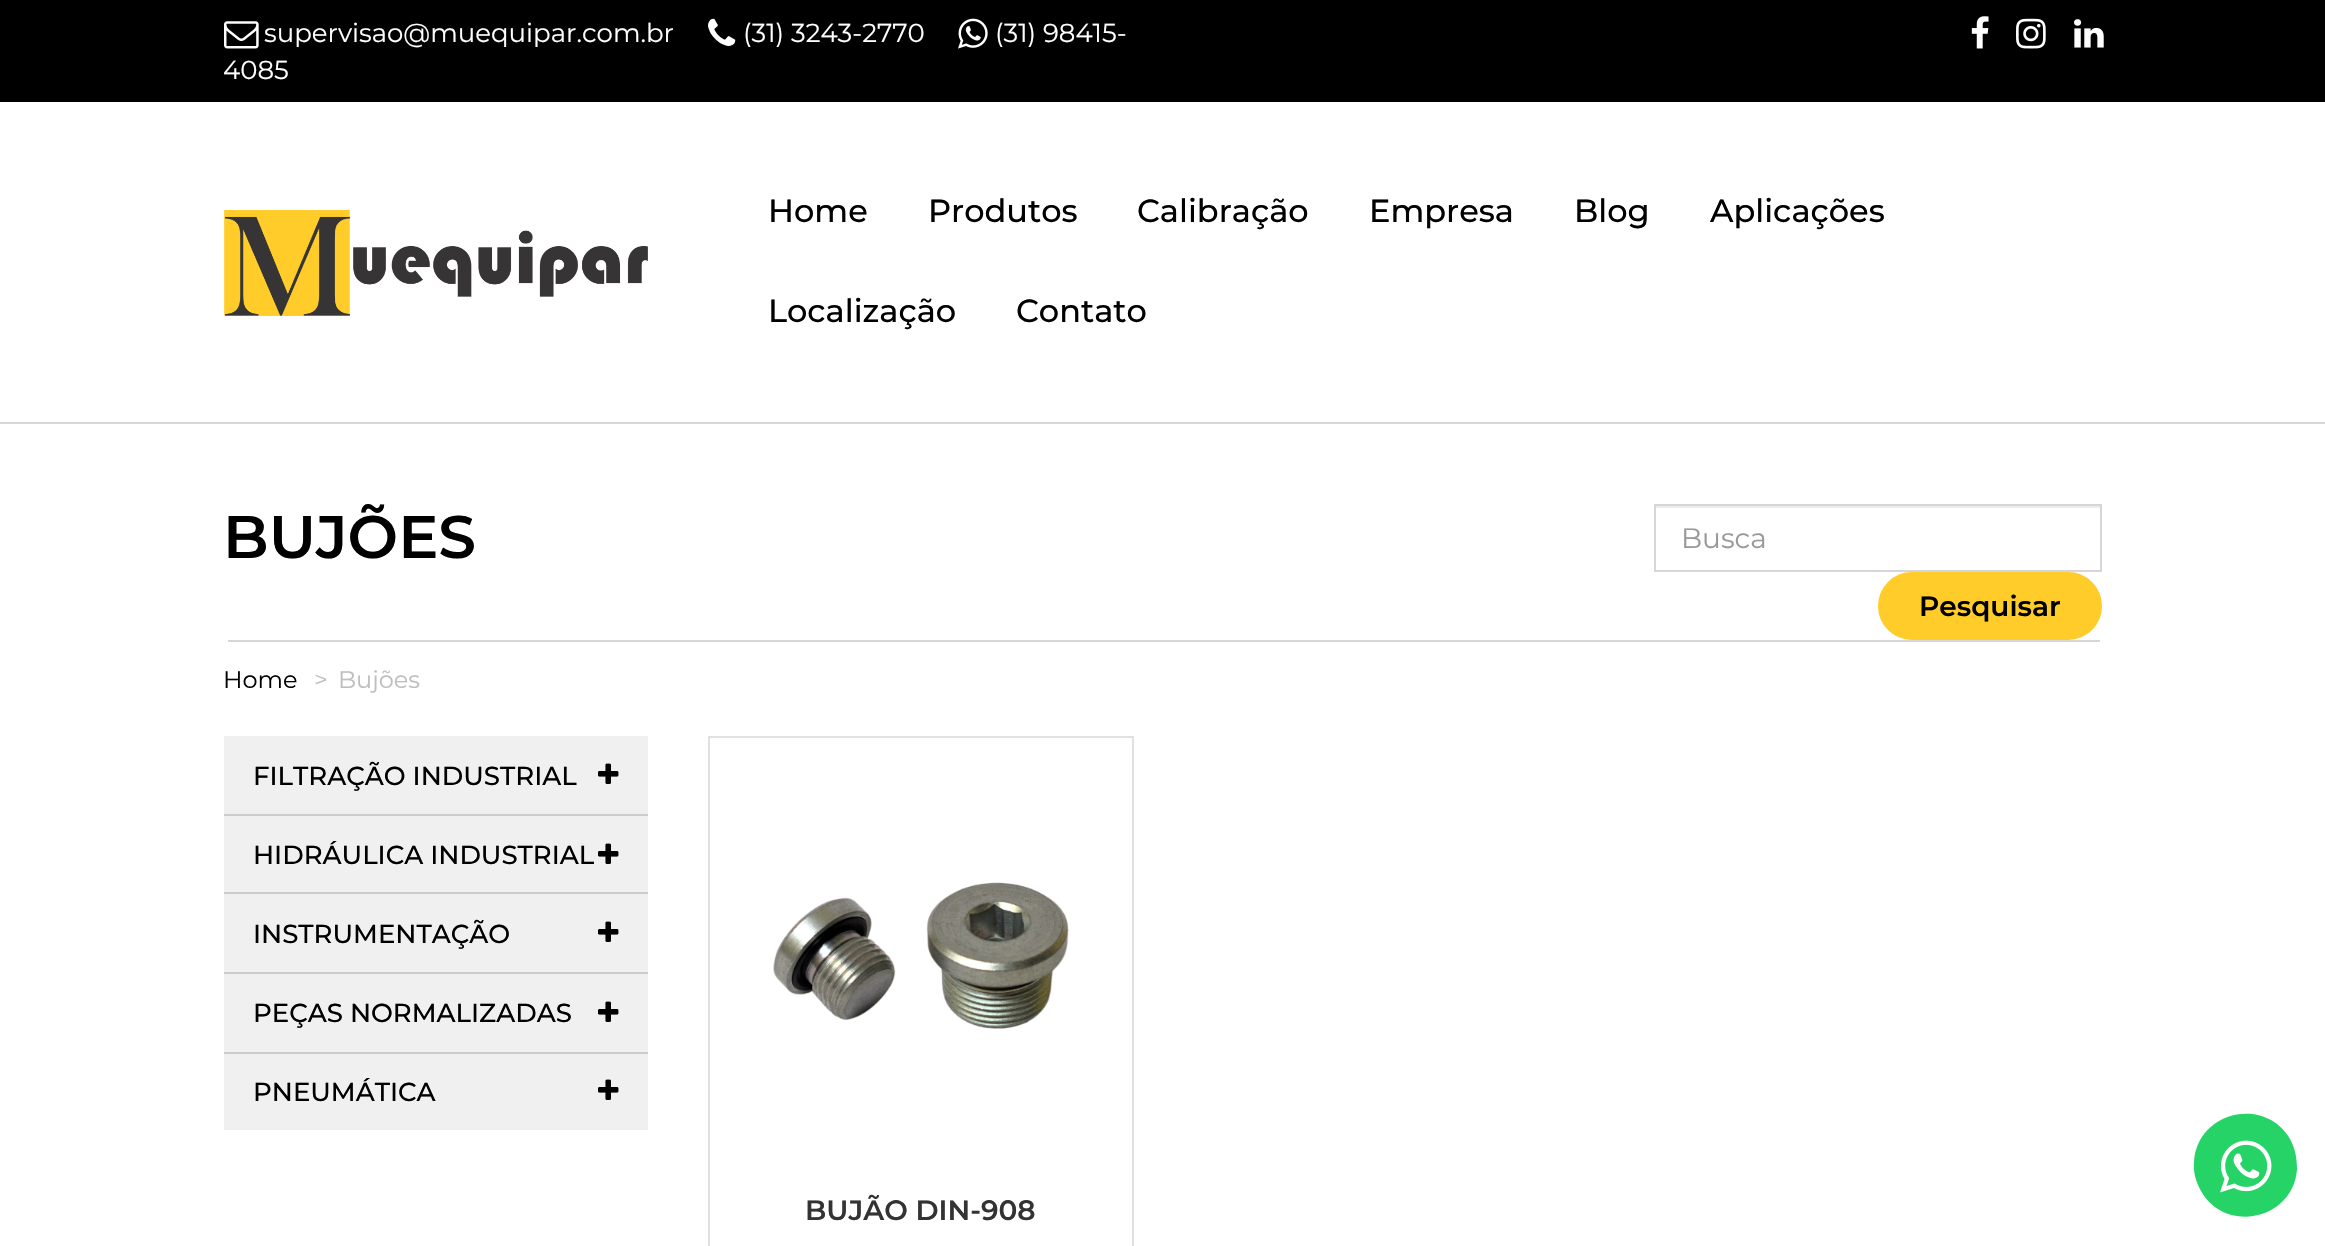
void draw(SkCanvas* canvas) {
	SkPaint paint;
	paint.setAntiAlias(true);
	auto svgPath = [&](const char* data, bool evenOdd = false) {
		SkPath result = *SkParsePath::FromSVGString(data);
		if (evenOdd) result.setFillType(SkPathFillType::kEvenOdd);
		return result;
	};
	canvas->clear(0xffffffff);
	paint.setColor(0xff000000);
	canvas->drawRect(SkRect::MakeXYWH(0, 0, 2325, 102), paint);
	canvas->drawImageRect(SkImages::DeferredFromEncodedData(SkData::MakeFromFileName("img1.png")), SkRect::MakeXYWH(224, 21, 35, 28), SkSamplingOptions());
	SkFont f1(fontMgr->matchFamilyStyle("Montserrat", SkFontStyle::Normal()), 26);
	f1.setSubpixel(true);
	paint.setColor(0xffffffff);
	canvas->drawString("supervisao@muequipar.com.br", 264, 42, f1, paint);
	canvas->drawImageRect(SkImages::DeferredFromEncodedData(SkData::MakeFromFileName("img2.png")), SkRect::MakeXYWH(708, 18, 28, 28), SkSamplingOptions());
	canvas->drawString("(31) 3243-2770", 743, 42, f1, paint);
	canvas->drawImageRect(SkImages::DeferredFromEncodedData(SkData::MakeFromFileName("img3.png")), SkRect::MakeXYWH(958, 18, 30, 31), SkSamplingOptions());
	canvas->drawString("(31) 98415-", 995, 42, f1, paint);
	canvas->drawString("4085", 223, 79, f1, paint);
	canvas->drawImageRect(SkImages::DeferredFromEncodedData(SkData::MakeFromFileName("img4.png")), SkRect::MakeXYWH(1971, 16, 18, 33), SkSamplingOptions());
	canvas->drawImageRect(SkImages::DeferredFromEncodedData(SkData::MakeFromFileName("img5.png")), SkRect::MakeXYWH(2016, 18, 30, 31), SkSamplingOptions());
	canvas->drawImageRect(SkImages::DeferredFromEncodedData(SkData::MakeFromFileName("img6.png")), SkRect::MakeXYWH(2074, 19, 30, 29), SkSamplingOptions());
	canvas->drawImageRect(SkImages::DeferredFromEncodedData(SkData::MakeFromFileName("img7.png")), SkRect::MakeXYWH(224, 210, 424, 106), SkSamplingOptions());
	SkFont f2(fontMgr->matchFamilyStyle("Montserrat", SkFontStyle(500, SkFontStyle::kNormal_Width, SkFontStyle::kUpright_Slant)), 32);
	f2.setSubpixel(true);
	paint.setColor(0xff000000);
	canvas->drawString("Home", 768, 222, f2, paint);
	canvas->drawString("Produtos", 928, 222, f2, paint);
	canvas->drawString("Calibração", 1137, 222, f2, paint);
	canvas->drawString("Empresa", 1369, 222, f2, paint);
	canvas->drawString("Blog", 1574, 222, f2, paint);
	canvas->drawString("Aplicações", 1710, 222, f2, paint);
	canvas->drawString("Localização", 768, 322, f2, paint);
	canvas->drawString("Contato", 1016, 322, f2, paint);
	paint.setColor(0xffd6d6d6);
	canvas->drawRect(SkRect::MakeXYWH(0, 422, 2325, 2), paint);
	SkFont f3(fontMgr->matchFamilyStyle("Montserrat", SkFontStyle(600, SkFontStyle::kNormal_Width, SkFontStyle::kUpright_Slant)), 60);
	f3.setSubpixel(true);
	paint.setColor(0xff000000);
	canvas->drawString("BUJÕES", 223, 558, f3, paint);
	paint.setColor(0xffececec);
	canvas->drawRect(SkRect::MakeXYWH(1656, 506, 444, 2), paint);
	paint.setStroke(true);
	paint.setStrokeWidth(2);
	paint.setColor(0xffd6d6d6);
	canvas->drawRect(SkRect::MakeXYWH(1655, 505, 446, 66), paint);
	SkFont f4(fontMgr->matchFamilyStyle("Montserrat", SkFontStyle::Normal()), 28);
	f4.setSubpixel(true);
	paint.setStroke(false);
	paint.setColor(0xff999999);
	canvas->drawString("Busca", 1681, 548, f4, paint);
	paint.setColor(0xffffcc2a);
	canvas->drawRoundRect(SkRect::MakeXYWH(1879, 573, 222, 66), 33, 33, paint);
	paint.setStroke(true);
	canvas->drawRoundRect(SkRect::MakeXYWH(1879, 573, 222, 66), 33, 33, paint);
	SkFont f5(fontMgr->matchFamilyStyle("Montserrat", SkFontStyle(600, SkFontStyle::kNormal_Width, SkFontStyle::kUpright_Slant)), 28);
	f5.setSubpixel(true);
	paint.setStroke(false);
	paint.setColor(0xff000000);
	canvas->drawString("Pesquisar", 1919, 616, f5, paint);
	paint.setColor(0xffd6d6d6);
	canvas->drawRect(SkRect::MakeXYWH(228, 640, 1872, 2), paint);
	SkFont f6(fontMgr->matchFamilyStyle("Montserrat", SkFontStyle::Normal()), 24);
	f6.setSubpixel(true);
	paint.setColor(0xff000000);
	canvas->drawString("Home", 223, 688, f6, paint);
	paint.setColor(0xffbebebe);
	canvas->drawString(">", 314, 688, f6, paint);
	canvas->drawString("Bujões", 338, 688, f6, paint);
	paint.setColor(0xfff0f0f0);
	canvas->drawRect(SkRect::MakeXYWH(224, 736, 424, 78), paint);
	SkFont f7(fontMgr->matchFamilyStyle("Montserrat", SkFontStyle(500, SkFontStyle::kNormal_Width, SkFontStyle::kUpright_Slant)), 26);
	f7.setSubpixel(true);
	paint.setColor(0xff000000);
	canvas->drawString("FILTRAÇÃO INDUSTRIAL", 253, 785, f7, paint);
	canvas->drawImageRect(SkImages::DeferredFromEncodedData(SkData::MakeFromFileName("img8.png")), SkRect::MakeXYWH(598, 763, 21, 21), SkSamplingOptions());
	paint.setColor(0xffcccccc);
	canvas->drawRect(SkRect::MakeXYWH(224, 814, 424, 2), paint);
	paint.setColor(0xfff0f0f0);
	canvas->drawRect(SkRect::MakeXYWH(224, 816, 424, 76), paint);
	paint.setColor(0xff000000);
	canvas->drawString("HIDRÁULICA INDUSTRIAL", 253, 864, f7, paint);
	canvas->drawImageRect(SkImages::DeferredFromEncodedData(SkData::MakeFromFileName("img8.png")), SkRect::MakeXYWH(598, 843, 21, 21), SkSamplingOptions());
	paint.setColor(0xffcccccc);
	canvas->drawRect(SkRect::MakeXYWH(224, 892, 424, 2), paint);
	paint.setColor(0xfff0f0f0);
	canvas->drawRect(SkRect::MakeXYWH(224, 894, 424, 78), paint);
	paint.setColor(0xff000000);
	canvas->drawString("INSTRUMENTAÇÃO", 253, 943, f7, paint);
	canvas->drawImageRect(SkImages::DeferredFromEncodedData(SkData::MakeFromFileName("img8.png")), SkRect::MakeXYWH(598, 921, 21, 21), SkSamplingOptions());
	paint.setColor(0xffcccccc);
	canvas->drawRect(SkRect::MakeXYWH(224, 972, 424, 2), paint);
	paint.setColor(0xfff0f0f0);
	canvas->drawRect(SkRect::MakeXYWH(224, 974, 424, 78), paint);
	paint.setColor(0xff000000);
	canvas->drawString("PEÇAS NORMALIZADAS", 253, 1022, f7, paint);
	canvas->drawImageRect(SkImages::DeferredFromEncodedData(SkData::MakeFromFileName("img8.png")), SkRect::MakeXYWH(598, 1001, 21, 21), SkSamplingOptions());
	paint.setColor(0xffcccccc);
	canvas->drawRect(SkRect::MakeXYWH(224, 1052, 424, 2), paint);
	paint.setColor(0xfff0f0f0);
	canvas->drawRect(SkRect::MakeXYWH(224, 1054, 424, 76), paint);
	paint.setColor(0xff000000);
	canvas->drawString("PNEUMÁTICA", 253, 1101, f7, paint);
	canvas->drawImageRect(SkImages::DeferredFromEncodedData(SkData::MakeFromFileName("img8.png")), SkRect::MakeXYWH(598, 1079, 21, 21), SkSamplingOptions());
	paint.setStroke(true);
	paint.setColor(0xffe1e1e1);
	canvas->drawRect(SkRect::MakeXYWH(709, 737, 424, 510), paint);
	canvas->drawImageRect(SkImages::DeferredFromEncodedData(SkData::MakeFromFileName("img9.png")), SkRect::MakeXYWH(773, 882, 296, 147), SkSamplingOptions());
	paint.setStroke(false);
	paint.setColor(0xff333333);
	canvas->drawString("BUJÃO DIN-908", 805, 1220, f5, paint);
	paint.setColor(0xff25d366);
	canvas->drawPath(svgPath("M2290 1139C2295 1148 2297 1158 2297 1169C2294 1219 2226 1235 2201 1191C2196 1182 2193 1172 2194 1162C2197 1111 2265 1096 2290 1139Z"), paint);
	canvas->drawImageRect(SkImages::DeferredFromEncodedData(SkData::MakeFromFileName("img10.png")), SkRect::MakeXYWH(2220, 1140, 52, 53), SkSamplingOptions());
}
